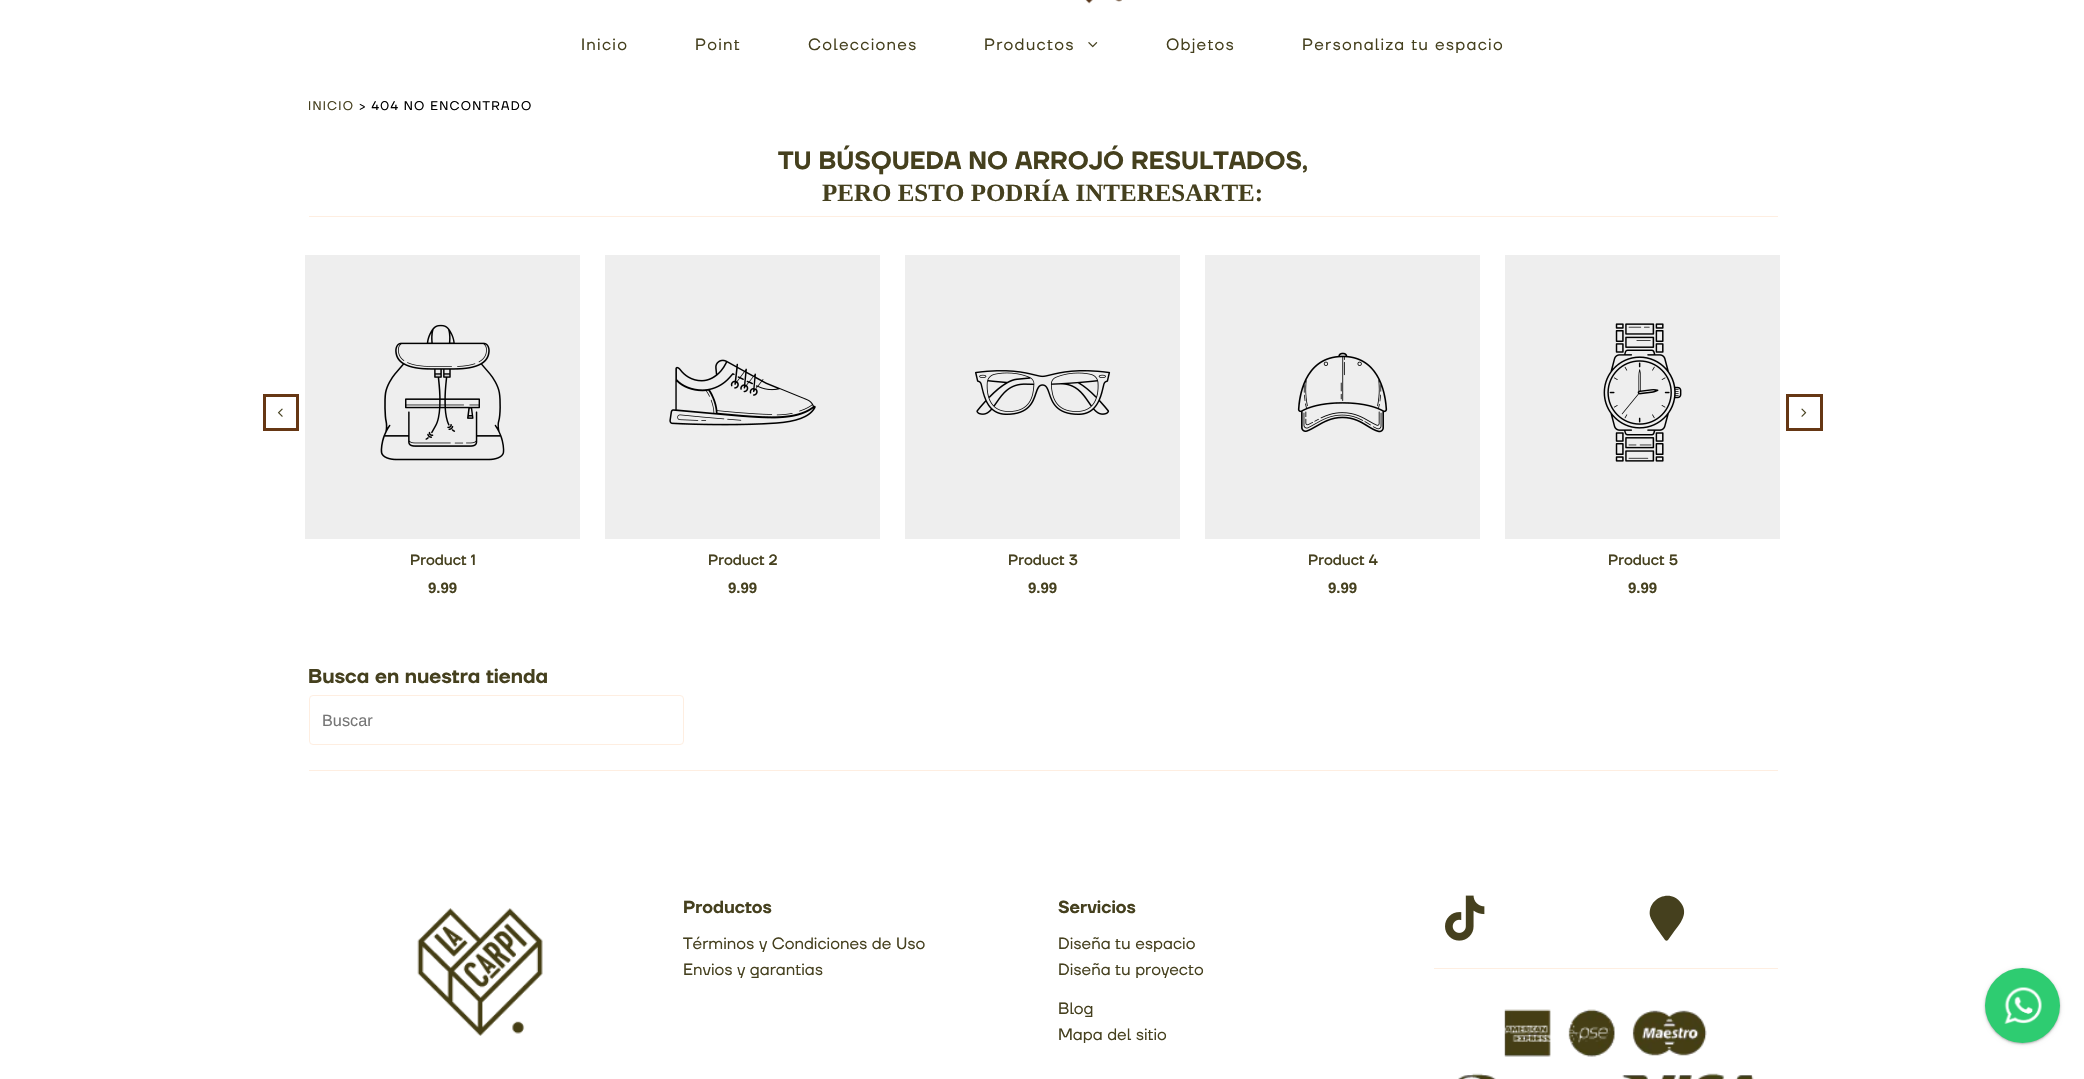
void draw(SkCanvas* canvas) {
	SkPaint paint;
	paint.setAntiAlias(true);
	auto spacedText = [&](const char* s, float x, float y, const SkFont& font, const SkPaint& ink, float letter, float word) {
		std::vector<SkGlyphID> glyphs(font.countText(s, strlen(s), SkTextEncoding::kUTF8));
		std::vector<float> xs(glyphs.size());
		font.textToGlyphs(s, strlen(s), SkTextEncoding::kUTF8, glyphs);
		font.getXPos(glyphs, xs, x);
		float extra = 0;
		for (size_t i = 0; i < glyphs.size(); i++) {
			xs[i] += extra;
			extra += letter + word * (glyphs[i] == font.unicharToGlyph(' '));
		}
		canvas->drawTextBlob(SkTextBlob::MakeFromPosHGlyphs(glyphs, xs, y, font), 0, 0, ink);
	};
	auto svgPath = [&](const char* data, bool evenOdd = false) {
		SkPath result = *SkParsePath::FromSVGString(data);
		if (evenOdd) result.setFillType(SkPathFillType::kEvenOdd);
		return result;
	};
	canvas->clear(0xffffffff);
	canvas->drawImageRect(SkImages::DeferredFromEncodedData(SkData::MakeFromFileName("img1.png")), SkRect::MakeXYWH(1085, 0, 37, 4), SkSamplingOptions());
	SkFont f1(fontMgr->matchFamilyStyle("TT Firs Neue", SkFontStyle::Normal()), 16.25);
	f1.setSubpixel(true);
	paint.setColor(0xff45401e);
	spacedText("Inicio", 581, 50, f1, paint, 1.25, 0);
	spacedText("Point", 695, 50, f1, paint, 1.25, 0);
	spacedText("Colecciones", 808, 50, f1, paint, 1.25, 0);
	spacedText("Productos", 984, 50, f1, paint, 1.25, 0);
	canvas->drawImageRect(SkImages::DeferredFromEncodedData(SkData::MakeFromFileName("img2.png")), SkRect::MakeXYWH(1088, 42, 10, 6), SkSamplingOptions());
	spacedText("Objetos", 1166, 50, f1, paint, 1.25, 0);
	spacedText("Personaliza tu espacio", 1302, 50, f1, paint, 1.25, 0);
	SkFont f2(fontMgr->matchFamilyStyle("TT Firs Neue", SkFontStyle::Normal()), 12.5);
	f2.setSubpixel(true);
	spacedText("INICIO", 308, 110, f2, paint, 1.25, 0);
	paint.setColor(0xff000000);
	spacedText("> 404 NO ENCONTRADO", 359, 110, f2, paint, 1.25, 0);
	paint.setColor(0xfffeeee1);
	canvas->drawRect(SkRect::MakeXYWH(309, 216, 1469, 1), paint);
	SkFont f3(fontMgr->matchFamilyStyle("TT Firs Neue", SkFontStyle(600, SkFontStyle::kNormal_Width, SkFontStyle::kUpright_Slant)), 25);
	f3.setSubpixel(true);
	paint.setColor(0xff45401e);
	canvas->drawString("TU BÚSQUEDA NO ARROJÓ RESULTADOS,", 778, 169, f3, paint);
	SkFont f4(fontMgr->matchFamilyStyle("Liberation Serif", SkFontStyle::Bold()), 25);
	f4.setSubpixel(true);
	canvas->drawString("PERO ESTO PODRÍA INTERESARTE:", 822, 201, f4, paint);
	paint.setStroke(true);
	paint.setStrokeWidth(3);
	paint.setColor(0xff663714);
	canvas->drawRect(SkRect::MakeXYWH(264.5, 395.5, 33, 34), paint);
	canvas->drawImageRect(SkImages::DeferredFromEncodedData(SkData::MakeFromFileName("img3.png")), SkRect::MakeXYWH(277, 408, 6, 9), SkSamplingOptions());
	canvas->drawRect(SkRect::MakeXYWH(1787.5, 395.5, 34, 34), paint);
	canvas->drawImageRect(SkImages::DeferredFromEncodedData(SkData::MakeFromFileName("img4.png")), SkRect::MakeXYWH(1801, 408, 6, 9), SkSamplingOptions());
	paint.setStroke(false);
	paint.setColor(0xffeeeeee);
	canvas->drawRect(SkRect::MakeXYWH(305, 255, 275, 284), paint);
	canvas->drawImageRect(SkImages::DeferredFromEncodedData(SkData::MakeFromFileName("img5.png")), SkRect::MakeXYWH(380, 324, 125, 137), SkSamplingOptions());
	SkFont f5(fontMgr->matchFamilyStyle("TT Firs Neue", SkFontStyle(500, SkFontStyle::kNormal_Width, SkFontStyle::kUpright_Slant)), 15);
	f5.setSubpixel(true);
	paint.setColor(0xff45401e);
	canvas->drawString("Product 1", 410, 565, f5, paint);
	SkFont f6(fontMgr->matchFamilyStyle("Liberation Sans", SkFontStyle::Bold()), 15);
	f6.setSubpixel(true);
	canvas->drawString("9.99", 428, 593, f6, paint);
	paint.setColor(0xffeeeeee);
	canvas->drawRect(SkRect::MakeXYWH(605, 255, 275, 284), paint);
	canvas->drawImageRect(SkImages::DeferredFromEncodedData(SkData::MakeFromFileName("img6.png")), SkRect::MakeXYWH(669, 359, 147, 67), SkSamplingOptions());
	paint.setColor(0xff45401e);
	canvas->drawString("Product 2", 708, 565, f5, paint);
	canvas->drawString("9.99", 728, 593, f6, paint);
	paint.setColor(0xffeeeeee);
	canvas->drawRect(SkRect::MakeXYWH(905, 255, 275, 284), paint);
	canvas->drawImageRect(SkImages::DeferredFromEncodedData(SkData::MakeFromFileName("img7.png")), SkRect::MakeXYWH(975, 370, 136, 45), SkSamplingOptions());
	paint.setColor(0xff45401e);
	canvas->drawString("Product 3", 1008, 565, f5, paint);
	canvas->drawString("9.99", 1028, 593, f6, paint);
	paint.setColor(0xffeeeeee);
	canvas->drawRect(SkRect::MakeXYWH(1205, 255, 275, 284), paint);
	canvas->drawImageRect(SkImages::DeferredFromEncodedData(SkData::MakeFromFileName("img8.png")), SkRect::MakeXYWH(1297, 352, 91, 81), SkSamplingOptions());
	paint.setColor(0xff45401e);
	canvas->drawString("Product 4", 1308, 565, f5, paint);
	canvas->drawString("9.99", 1328, 593, f6, paint);
	paint.setColor(0xffeeeeee);
	canvas->drawRect(SkRect::MakeXYWH(1505, 255, 275, 284), paint);
	canvas->drawImageRect(SkImages::DeferredFromEncodedData(SkData::MakeFromFileName("img9.png")), SkRect::MakeXYWH(1603, 323, 79, 139), SkSamplingOptions());
	paint.setColor(0xff45401e);
	canvas->drawString("Product 5", 1608, 565, f5, paint);
	canvas->drawString("9.99", 1628, 593, f6, paint);
	paint.setColor(0xfffeeee1);
	canvas->drawRect(SkRect::MakeXYWH(309, 770, 1469, 1), paint);
	SkFont f7(fontMgr->matchFamilyStyle("TT Firs Neue", SkFontStyle(600, SkFontStyle::kNormal_Width, SkFontStyle::kUpright_Slant)), 20);
	f7.setSubpixel(true);
	paint.setColor(0xff45401e);
	canvas->drawString("Busca en nuestra tienda", 308, 683, f7, paint);
	paint.setStroke(true);
	paint.setStrokeWidth(1);
	paint.setColor(0xfffeeee1);
	canvas->drawRoundRect(SkRect::MakeXYWH(309.5, 695.5, 374, 49), 3.5, 3.5, paint);
	SkFont f8(fontMgr->matchFamilyStyle("Liberation Sans", SkFontStyle::Normal()), 16.25);
	f8.setSubpixel(true);
	paint.setStroke(false);
	paint.setColor(0xff757575);
	canvas->drawString("Buscar", 322, 726, f8, paint);
	canvas->drawImageRect(SkImages::DeferredFromEncodedData(SkData::MakeFromFileName("img10.png")), SkRect::MakeXYWH(417, 908, 126, 128), SkSamplingOptions());
	SkFont f9(fontMgr->matchFamilyStyle("TT Firs Neue", SkFontStyle(600, SkFontStyle::kNormal_Width, SkFontStyle::kUpright_Slant)), 17.5);
	f9.setSubpixel(true);
	paint.setColor(0xff45401e);
	canvas->drawString("Productos", 683, 913, f9, paint);
	canvas->drawString("Términos y Condiciones de Uso", 683, 949, f1, paint);
	canvas->drawString("Envios y garantias", 683, 975, f1, paint);
	canvas->drawString("Servicios", 1058, 913, f9, paint);
	canvas->drawString("Diseña tu espacio", 1058, 949, f1, paint);
	canvas->drawString("Diseña tu proyecto", 1058, 975, f1, paint);
	canvas->drawString("Blog", 1058, 1014, f1, paint);
	canvas->drawString("Mapa del sitio", 1058, 1040, f1, paint);
	canvas->drawImageRect(SkImages::DeferredFromEncodedData(SkData::MakeFromFileName("img11.png")), SkRect::MakeXYWH(1445, 895, 40, 46), SkSamplingOptions());
	canvas->drawPath(svgPath("M1665 940C1661 934 1652 923 1650 916C1647 898 1671 888 1681 903C1689 914 1680 924 1673 933L1668 940C1667 941 1666 941 1665 940Z"), paint);
	paint.setColor(0xfffeeee1);
	canvas->drawRect(SkRect::MakeXYWH(1434, 968, 344, 1), paint);
	canvas->drawImageRect(SkImages::DeferredFromEncodedData(SkData::MakeFromFileName("img12.png")), SkRect::MakeXYWH(1458, 1009, 296, 70), SkSamplingOptions());
	paint.setColor(0x3d000000);
	paint.setMaskFilter(SkMaskFilter::MakeBlur(kNormal_SkBlurStyle, 1));
	canvas->drawRoundRect(SkRect::MakeXYWH(1985, 969, 75, 75), 37.5, 37.5, paint);
	paint.setMaskFilter(nullptr);
	paint.setColor(0x1f000000);
	paint.setMaskFilter(SkMaskFilter::MakeBlur(kNormal_SkBlurStyle, 2));
	canvas->drawRoundRect(SkRect::MakeXYWH(1985, 969, 75, 75), 37.5, 37.5, paint);
	paint.setMaskFilter(nullptr);
	paint.setColor(0xff2ecc71);
	canvas->drawCircle(2022.5, 1005.5, 37.5, paint);
	canvas->drawImageRect(SkImages::DeferredFromEncodedData(SkData::MakeFromFileName("img13.png")), SkRect::MakeXYWH(2004, 987, 38, 37), SkSamplingOptions());
}
